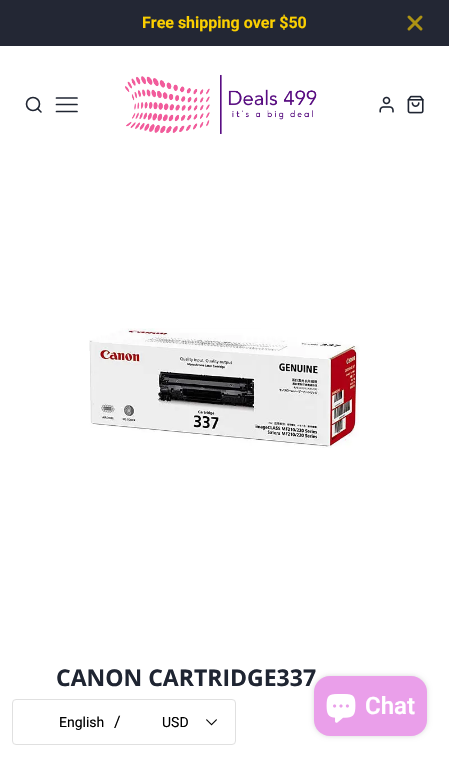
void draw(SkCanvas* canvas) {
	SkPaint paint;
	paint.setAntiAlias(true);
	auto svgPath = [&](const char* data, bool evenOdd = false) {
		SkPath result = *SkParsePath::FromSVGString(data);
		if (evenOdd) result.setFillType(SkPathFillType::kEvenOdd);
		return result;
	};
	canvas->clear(0xffffffff);
	paint.setColor(0xff232734);
	canvas->drawRect(SkRect::MakeXYWH(0, 0, 449, 46), paint);
	SkFont f1(fontMgr->matchFamilyStyle("Roboto", SkFontStyle::Bold()), 16);
	f1.setSubpixel(true);
	paint.setColor(0xfffbcf00);
	canvas->drawString("Free shipping over $50", 142, 28, f1, paint);
	paint.setStroke(true);
	paint.setStrokeWidth(3);
	paint.setStrokeCap(SkPaint::kRound_Cap);
	paint.setStrokeJoin(SkPaint::kRound_Join);
	paint.setColor(0xffad9313);
	canvas->drawPath(svgPath("M421 17L409 29M409 17L421 29"), paint);
	paint.setStrokeWidth(1.6);
	paint.setStrokeCap(SkPaint::kButt_Cap);
	paint.setStrokeJoin(SkPaint::kMiter_Join);
	paint.setColor(0xff1f2532);
	canvas->drawCircle(33, 104, 6.5, paint);
	paint.setStrokeCap(SkPaint::kRound_Cap);
	paint.setStrokeJoin(SkPaint::kRound_Join);
	canvas->drawPath(svgPath("M41 112L37.5 108.5"), paint);
	paint.setStrokeWidth(1.7);
	canvas->drawPath(svgPath("M56.5 104.5H77M56.5 98H77M56.5 111.5H77"), paint);
	canvas->drawImageRect(SkImages::DeferredFromEncodedData(SkData::MakeFromFileName("img1.png")), SkRect::MakeXYWH(125, 74, 192, 60), SkSamplingOptions());
	canvas->drawImageRect(SkImages::DeferredFromEncodedData(SkData::MakeFromFileName("img2.png")), SkRect::MakeXYWH(379, 96, 15, 17), SkSamplingOptions());
	canvas->drawImageRect(SkImages::DeferredFromEncodedData(SkData::MakeFromFileName("img3.png")), SkRect::MakeXYWH(407, 95, 17, 19), SkSamplingOptions());
	canvas->drawImageRect(SkImages::DeferredFromEncodedData(SkData::MakeFromFileName("img4.png")), SkRect::MakeXYWH(89, 328, 271, 120), SkSamplingOptions());
	SkFont f2(fontMgr->matchFamilyStyle("Open Sans", SkFontStyle::Bold()), 23);
	f2.setSubpixel(true);
	paint.setStroke(false);
	canvas->drawString("CANON CARTRIDGE337", 56, 686, f2, paint);
	paint.setColor(0x26000000);
	paint.setMaskFilter(SkMaskFilter::MakeBlur(kNormal_SkBlurStyle, 2.5));
	canvas->drawRoundRect(SkRect::MakeXYWH(314, 676, 113, 60), 16, 16, paint);
	paint.setMaskFilter(nullptr);
	paint.setColor(0xffea9fea);
	canvas->drawRoundRect(SkRect::MakeXYWH(314, 676, 113, 60), 16, 16, paint);
	canvas->drawImageRect(SkImages::DeferredFromEncodedData(SkData::MakeFromFileName("img5.png")), SkRect::MakeXYWH(326, 694, 30, 29), SkSamplingOptions());
	SkFont f3(fontMgr->matchFamilyStyle("Roboto", SkFontStyle(600, SkFontStyle::kNormal_Width, SkFontStyle::kUpright_Slant)), 24);
	f3.setSubpixel(true);
	paint.setColor(0xffffffff);
	canvas->drawString("Chat", 365, 714, f3, paint);
	paint.setStroke(true);
	paint.setStrokeWidth(1);
	paint.setStrokeCap(SkPaint::kButt_Cap);
	paint.setStrokeJoin(SkPaint::kMiter_Join);
	paint.setColor(0xffe0e0e0);
	canvas->drawRoundRect(SkRect::MakeXYWH(12.5, 699.5, 223, 45), 3.5, 3.5, paint);
	SkFont f4(fontMgr->matchFamilyStyle("Roboto", SkFontStyle::Normal()), 14);
	f4.setSubpixel(true);
	paint.setStroke(false);
	paint.setColor(0xff000000);
	canvas->drawString("English", 59, 727, f4, paint);
	SkFont f5(fontMgr->matchFamilyStyle("Roboto", SkFontStyle::Normal()), 16);
	f5.setSubpixel(true);
	canvas->drawString("/", 114, 727, f5, paint);
	canvas->drawString("USD", 162, 727, f4, paint);
	canvas->drawImageRect(SkImages::DeferredFromEncodedData(SkData::MakeFromFileName("img6.png")), SkRect::MakeXYWH(206, 719, 11, 7), SkSamplingOptions());
}
